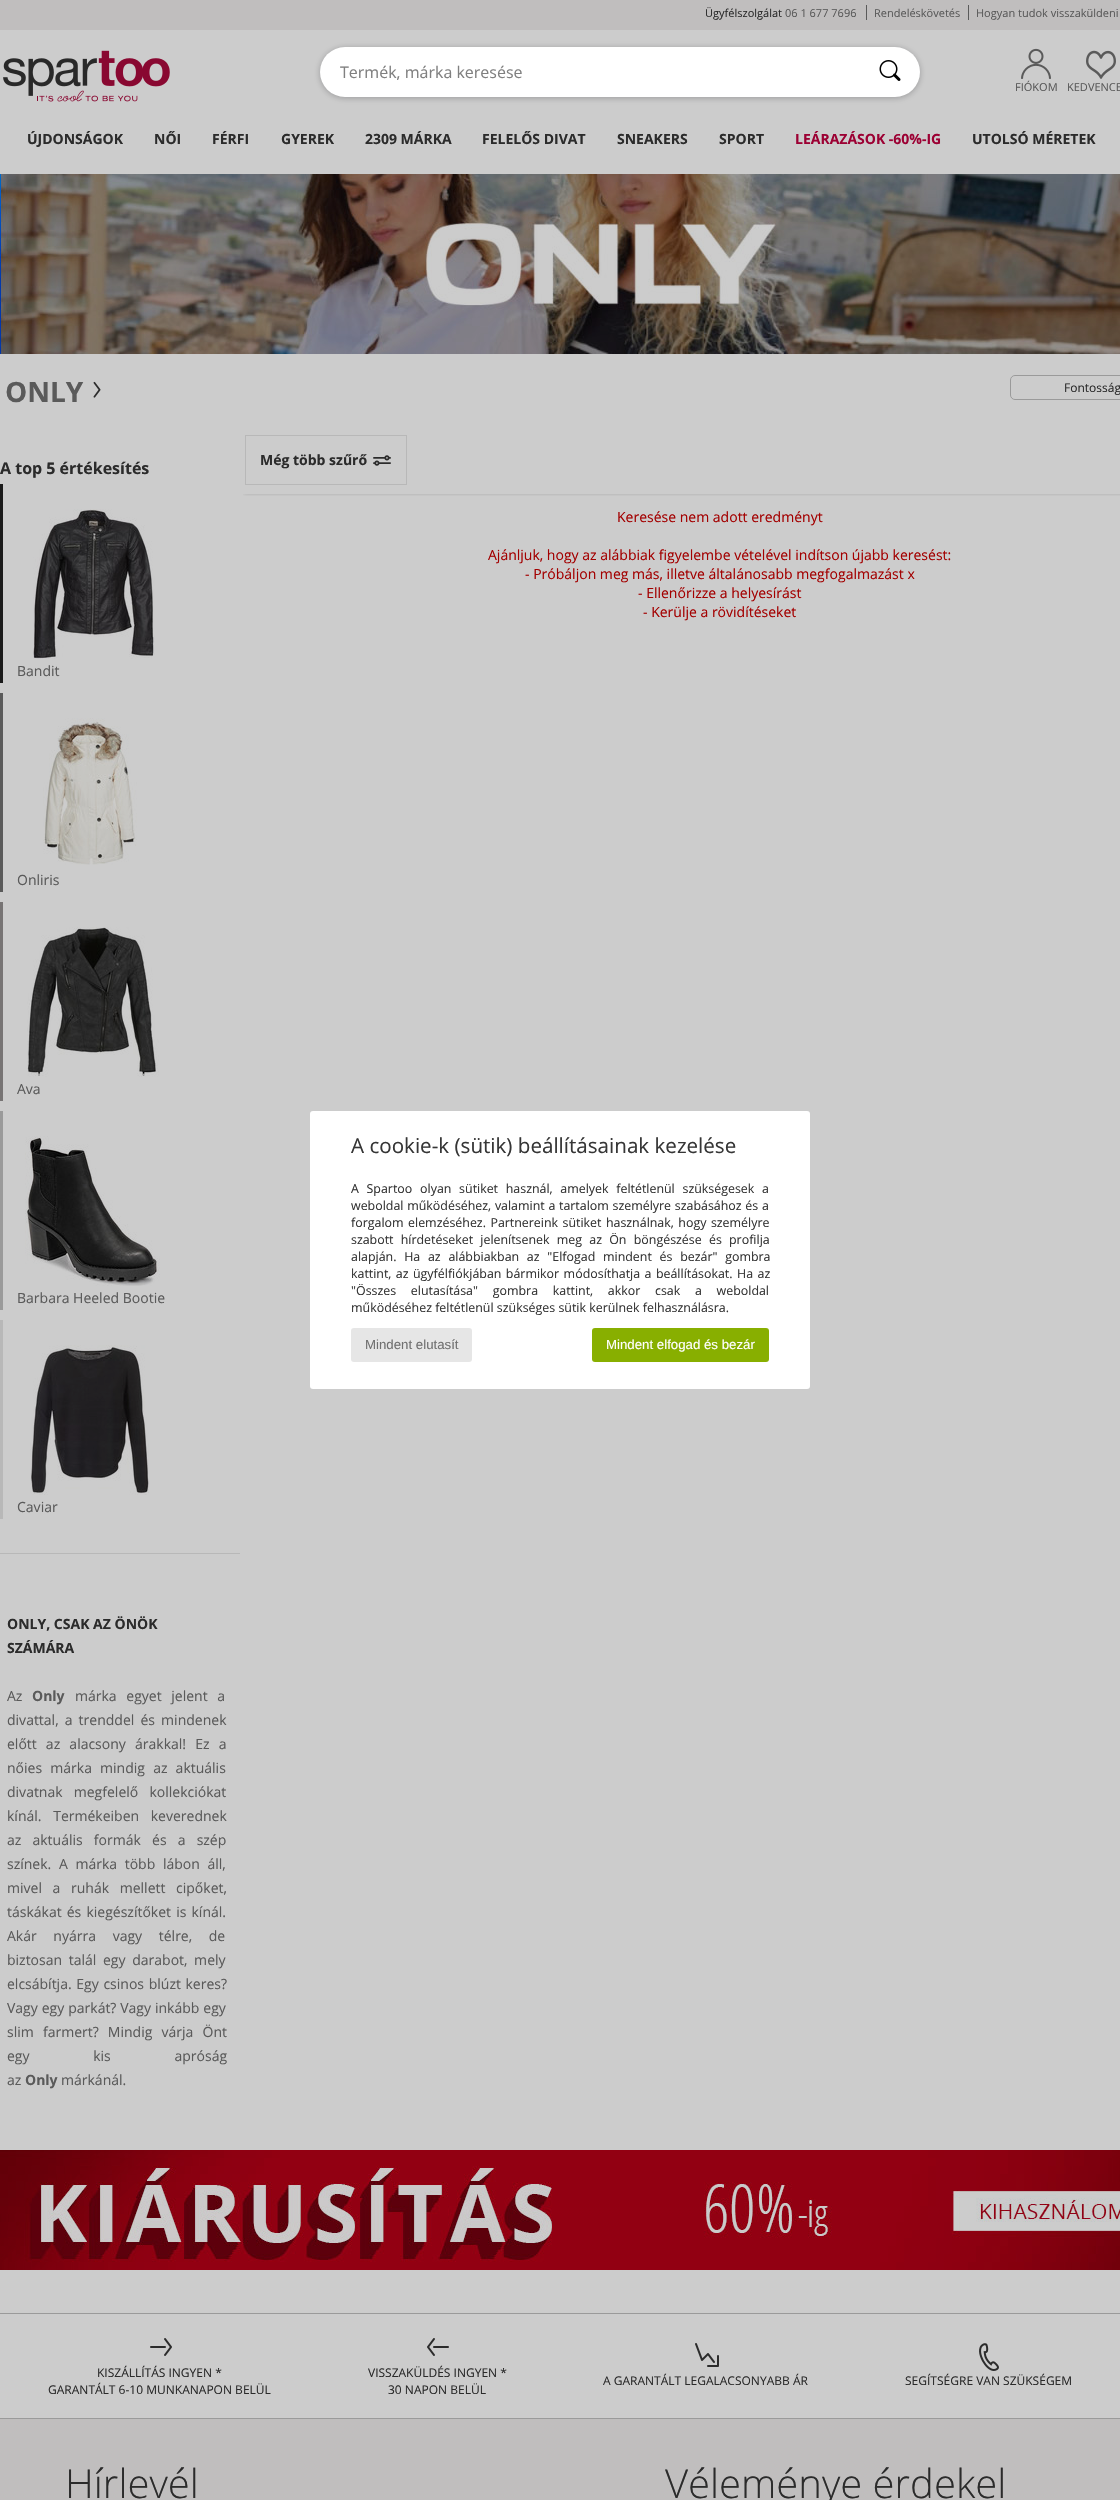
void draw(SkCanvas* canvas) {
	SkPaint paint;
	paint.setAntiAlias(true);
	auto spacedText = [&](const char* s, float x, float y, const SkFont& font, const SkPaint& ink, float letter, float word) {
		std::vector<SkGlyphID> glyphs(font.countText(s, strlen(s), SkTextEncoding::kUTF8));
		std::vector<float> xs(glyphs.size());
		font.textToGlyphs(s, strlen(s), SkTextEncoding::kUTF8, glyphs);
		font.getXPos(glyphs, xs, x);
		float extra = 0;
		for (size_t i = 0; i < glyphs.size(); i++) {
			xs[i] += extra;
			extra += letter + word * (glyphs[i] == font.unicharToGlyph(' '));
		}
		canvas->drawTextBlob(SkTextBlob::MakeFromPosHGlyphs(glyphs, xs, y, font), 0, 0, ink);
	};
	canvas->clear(0xffcccccc);
	paint.setColor(0xffc0bebe);
	canvas->drawRect(SkRect::MakeXYWH(0, 0, 1120, 30), paint);
	paint.setColor(0xff5a5a5a);
	canvas->drawRect(SkRect::MakeXYWH(866, 5, 1, 15), paint);
	SkFont f1(fontMgr->matchFamilyStyle("Open Sans", SkFontStyle::Normal()), 11);
	f1.setSubpixel(true);
	paint.setColor(0xff2b2b2b);
	canvas->drawString("Ügyfélszolgálat", 705, 17, f1, paint);
	paint.setColor(0xff5a5a5a);
	canvas->drawString("06 1 677 7696", 785, 17, f1, paint);
	canvas->drawRect(SkRect::MakeXYWH(968, 5, 1, 15), paint);
	canvas->drawString("Rendeléskövetés", 874, 17, f1, paint);
	canvas->drawString("Hogyan tudok visszaküldeni", 976, 17, f1, paint);
	canvas->drawImageRect(SkImages::DeferredFromEncodedData(SkData::MakeFromFileName("img1.png")), SkRect::MakeXYWH(3, 50, 167, 52), SkSamplingOptions());
	paint.setColor(0x471a1a1d);
	paint.setMaskFilter(SkMaskFilter::MakeBlur(kNormal_SkBlurStyle, 3));
	canvas->drawRoundRect(SkRect::MakeXYWH(320, 48, 600, 50), 25, 25, paint);
	paint.setMaskFilter(nullptr);
	paint.setColor(0xffffffff);
	canvas->drawRoundRect(SkRect::MakeXYWH(320, 47, 600, 50), 25, 25, paint);
	SkFont f2(fontMgr->matchFamilyStyle("Open Sans", SkFontStyle::Normal()), 16);
	f2.setSubpixel(true);
	paint.setColor(0xff808080);
	canvas->drawString("Termék, márka keresése", 340, 78, f2, paint);
	canvas->drawImageRect(SkImages::DeferredFromEncodedData(SkData::MakeFromFileName("img2.png")), SkRect::MakeXYWH(879, 60, 22, 21), SkSamplingOptions());
	canvas->drawImageRect(SkImages::DeferredFromEncodedData(SkData::MakeFromFileName("img3.png")), SkRect::MakeXYWH(1021, 48, 30, 31), SkSamplingOptions());
	paint.setColor(0xff5a5a5a);
	canvas->drawString("FIÓKOM", 1015, 91, f1, paint);
	canvas->drawImageRect(SkImages::DeferredFromEncodedData(SkData::MakeFromFileName("img4.png")), SkRect::MakeXYWH(1086, 50, 30, 29), SkSamplingOptions());
	canvas->drawString("KEDVENCE", 1067, 91, f1, paint);
	SkFont f3(fontMgr->matchFamilyStyle("Open Sans", SkFontStyle::Bold()), 14);
	f3.setSubpixel(true);
	paint.setColor(0xff2b2b2b);
	canvas->drawString("ÚJDONSÁGOK", 27, 144, f3, paint);
	canvas->drawString("NŐI", 154, 144, f3, paint);
	canvas->drawString("FÉRFI", 212, 144, f3, paint);
	canvas->drawString("GYEREK", 281, 144, f3, paint);
	canvas->drawString("2309 MÁRKA", 365, 144, f3, paint);
	canvas->drawString("FELELŐS DIVAT", 482, 144, f3, paint);
	canvas->drawString("SNEAKERS", 617, 144, f3, paint);
	canvas->drawString("SPORT", 719, 144, f3, paint);
	paint.setColor(0xff9c0033);
	canvas->drawString("LEÁRAZÁSOK -60%-IG", 795, 144, f3, paint);
	paint.setColor(0xff2b2b2b);
	canvas->drawString("UTOLSÓ MÉRETEK", 972, 144, f3, paint);
	canvas->drawImageRect(SkImages::DeferredFromEncodedData(SkData::MakeFromFileName("img5.png")), SkRect::MakeXYWH(0, 174, 1120, 180), SkSamplingOptions());
	SkFont f4(fontMgr->matchFamilyStyle("Open Sans", SkFontStyle::Bold()), 28);
	f4.setSubpixel(true);
	paint.setColor(0xff5a5a5a);
	canvas->drawString("ONLY", 5, 402, f4, paint);
	canvas->drawImageRect(SkImages::DeferredFromEncodedData(SkData::MakeFromFileName("img6.png")), SkRect::MakeXYWH(93, 381, 8, 17), SkSamplingOptions());
	paint.setStroke(true);
	paint.setStrokeWidth(1);
	paint.setColor(0xff9a9a9a);
	canvas->drawRoundRect(SkRect::MakeXYWH(1010.5, 375.5, 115, 24), 4.5, 4.5, paint);
	SkFont f5(fontMgr->matchFamilyStyle("Open Sans", SkFontStyle::Normal()), 12);
	f5.setSubpixel(true);
	paint.setStroke(false);
	paint.setColor(0xff2b2b2b);
	canvas->drawString("Fontosság", 1064, 392, f5, paint);
	SkFont f6(fontMgr->matchFamilyStyle("Open Sans", SkFontStyle::Bold()), 16);
	f6.setSubpixel(true);
	canvas->drawString("A top 5 értékesítés", 0, 474, f6, paint);
	paint.setColor(0xff1a1a1a);
	canvas->drawRect(SkRect::MakeXYWH(0, 484, 3, 199), paint);
	canvas->drawImageRect(SkImages::DeferredFromEncodedData(SkData::MakeFromFileName("img7.png")), SkRect::MakeXYWH(33, 509, 122, 150), SkSamplingOptions());
	SkFont f7(fontMgr->matchFamilyStyle("Open Sans", SkFontStyle::Normal()), 14);
	f7.setSubpixel(true);
	paint.setColor(0xff5a5a5a);
	canvas->drawString("Bandit", 17, 676, f7, paint);
	canvas->drawRect(SkRect::MakeXYWH(0, 693, 3, 199), paint);
	canvas->drawImageRect(SkImages::DeferredFromEncodedData(SkData::MakeFromFileName("img8.png")), SkRect::MakeXYWH(43, 718, 94, 147), SkSamplingOptions());
	canvas->drawString("Onliris", 17, 885, f7, paint);
	paint.setColor(0xff777474);
	canvas->drawRect(SkRect::MakeXYWH(0, 902, 3, 199), paint);
	canvas->drawImageRect(SkImages::DeferredFromEncodedData(SkData::MakeFromFileName("img9.png")), SkRect::MakeXYWH(27, 927, 132, 150), SkSamplingOptions());
	paint.setColor(0xff5a5a5a);
	canvas->drawString("Ava", 17, 1094, f7, paint);
	paint.setColor(0xff9a9a9a);
	canvas->drawRect(SkRect::MakeXYWH(0, 1111, 3, 199), paint);
	canvas->drawImageRect(SkImages::DeferredFromEncodedData(SkData::MakeFromFileName("img10.png")), SkRect::MakeXYWH(25, 1136, 135, 150), SkSamplingOptions());
	paint.setColor(0xff5a5a5a);
	canvas->drawString("Barbara Heeled Bootie", 17, 1303, f7, paint);
	paint.setColor(0xffb8b8b8);
	canvas->drawRect(SkRect::MakeXYWH(0, 1320, 3, 199), paint);
	canvas->drawImageRect(SkImages::DeferredFromEncodedData(SkData::MakeFromFileName("img11.png")), SkRect::MakeXYWH(30, 1345, 119, 150), SkSamplingOptions());
	paint.setColor(0xff5a5a5a);
	canvas->drawString("Caviar", 17, 1512, f7, paint);
	paint.setColor(0xffb8b8b8);
	canvas->drawRect(SkRect::MakeXYWH(0, 1553, 240, 1), paint);
	paint.setColor(0xff2b2b2b);
	canvas->drawString("ONLY, CSAK AZ ÖNÖK", 7, 1629, f3, paint);
	canvas->drawString("SZÁMÁRA", 7, 1653, f3, paint);
	paint.setColor(0xff5a5a5a);
	canvas->drawString("Az", 7, 1701, f7, paint);
	canvas->drawString("Only", 32, 1701, f3, paint);
	spacedText("márka egyet jelent a", 75, 1701, f7, paint, 0, 6);
	spacedText("divattal, a trenddel és mindenek", 7, 1725, f7, paint, 0, 2.5);
	spacedText("előtt az alacsony árakkal! Ez a", 7, 1749, f7, paint, 0, 5.5);
	spacedText("nőies márka mindig az aktuális", 7, 1773, f7, paint, 0, 4.5);
	spacedText("divatnak megfelelő kollekciókat", 7, 1797, f7, paint, 0, 7.5);
	spacedText("kínál. Termékeiben keverednek", 7, 1821, f7, paint, 0, 8);
	spacedText("az aktuális formák és a szép", 7, 1845, f7, paint, 0, 7.5);
	spacedText("színek. A márka több lábon áll,", 7, 1869, f7, paint, 0, 4);
	spacedText("mivel a ruhák mellett cipőket,", 7, 1893, f7, paint, 0, 7);
	spacedText("táskákat és kiegészítőket is kínál.", 7, 1917, f7, paint, 0, 1.5);
	spacedText("Akár nyárra vagy télre, de", 7, 1941, f7, paint, 0, 13);
	spacedText("biztosan talál egy darabot, mely", 7, 1965, f7, paint, 0, 3);
	spacedText("elcsábítja. Egy csinos blúzt keres?", 7, 1989, f7, paint, 0, 1);
	spacedText("Vagy egy parkát? Vagy inkább egy", 7, 2013, f7, paint, 0, 0.25);
	spacedText("slim farmert? Mindig várja Önt", 7, 2037, f7, paint, 0, 5.5);
	spacedText("egy kis apróság", 7, 2061, f7, paint, 0, 60);
	canvas->drawString("az", 7, 2085, f7, paint);
	canvas->drawString("Only", 25, 2085, f3, paint);
	canvas->drawString("márkánál.", 61, 2085, f7, paint);
	canvas->save();
	canvas->clipRect(SkRect::MakeXYWH(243, 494, 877, 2));
	paint.setColor(0x40000000);
	paint.setMaskFilter(SkMaskFilter::MakeBlur(kNormal_SkBlurStyle, 2));
	canvas->drawRect(SkRect::MakeXYWH(244, 437, 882, 56), paint);
	paint.setMaskFilter(nullptr);
	canvas->restore();
	paint.setStroke(true);
	paint.setColor(0xffb8b8b8);
	canvas->drawRect(SkRect::MakeXYWH(245.5, 435.5, 161, 49), paint);
	paint.setStroke(false);
	paint.setColor(0xff2b2b2b);
	canvas->drawString("Még több szűrő", 260, 465, f3, paint);
	canvas->drawImageRect(SkImages::DeferredFromEncodedData(SkData::MakeFromFileName("img12.png")), SkRect::MakeXYWH(373, 455, 18, 11), SkSamplingOptions());
	paint.setColor(0xffa30000);
	canvas->drawString("Keresése nem adott eredményt", 617, 522, f7, paint);
	canvas->drawString("Ajánljuk, hogy az alábbiak figyelembe vételével indítson újabb keresést:", 488, 560, f7, paint);
	canvas->drawString("- Próbáljon meg más, illetve általánosabb megfogalmazást x", 525, 579, f7, paint);
	canvas->drawString("- Ellenőrizze a helyesírást", 638, 598, f7, paint);
	canvas->drawString("- Kerülje a rövidítéseket", 643, 617, f7, paint);
	paint.setColor(0xffffffff);
	canvas->drawRoundRect(SkRect::MakeXYWH(310, 1111, 500, 278), 3, 3, paint);
	SkFont f8(fontMgr->matchFamilyStyle("Open Sans", SkFontStyle::Normal()), 20.6);
	f8.setSubpixel(true);
	paint.setColor(0xff363636);
	canvas->drawString("A cookie-k (sütik) beállításainak kezelése", 351, 1153, f8, paint);
	SkFont f9(fontMgr->matchFamilyStyle("Open Sans", SkFontStyle::Normal()), 12.4);
	f9.setSubpixel(true);
	spacedText("A Spartoo olyan sütiket használ, amelyek feltétlenül szükségesek a", 351, 1193, f9, paint, 0, 4.5);
	spacedText("weboldal működéséhez, valamint a tartalom személyre szabásához és a", 351, 1210, f9, paint, 0, 0.5);
	spacedText("forgalom elemzéséhez. Partnereink sütiket használnak, hogy személyre", 351, 1227, f9, paint, 0, 1.25);
	spacedText("szabott hírdetéseket jelenítsenek meg az Ön böngészése és profilja", 351, 1244, f9, paint, 0, 4);
	spacedText("alapján. Ha az alábbiakban az \"Elfogad mindent és bezár\" gombra", 351, 1261, f9, paint, 0, 4.5);
	spacedText("kattint, az ügyfélfiókjában bármikor módosíthatja a beállításokat. Ha az", 351, 1278, f9, paint, 0, 1.25);
	spacedText("\"Összes elutasítása\" gombra kattint, akkor csak a weboldal", 351, 1295, f9, paint, 0, 11.5);
	canvas->drawString("működéséhez feltétlenül szükséges sütik kerülnek felhasználásra.", 351, 1312, f9, paint);
	paint.setColor(0xffe6e6e6);
	canvas->drawRoundRect(SkRect::MakeXYWH(351, 1328, 121, 34), 3, 3, paint);
	SkFont f10(fontMgr->matchFamilyStyle("Liberation Sans", SkFontStyle::Normal()), 13.25);
	f10.setSubpixel(true);
	paint.setColor(0xff707070);
	canvas->drawString("Mindent elutasít", 365, 1349, f10, paint);
	paint.setColor(0xff88af00);
	canvas->drawRoundRect(SkRect::MakeXYWH(592, 1328, 177, 34), 3, 3, paint);
	paint.setColor(0xffffffff);
	canvas->drawString("Mindent elfogad és bezár", 606, 1349, f10, paint);
	canvas->drawImageRect(SkImages::DeferredFromEncodedData(SkData::MakeFromFileName("img13.png")), SkRect::MakeXYWH(0, 2150, 1120, 120), SkSamplingOptions());
	paint.setColor(0xffc0bebe);
	canvas->drawRect(SkRect::MakeXYWH(0, 2419, 1120, 81), paint);
	paint.setColor(0xff9a9a9a);
	canvas->drawRect(SkRect::MakeXYWH(0, 2313, 1120, 1), paint);
	canvas->drawRect(SkRect::MakeXYWH(0, 2418, 1120, 1), paint);
	canvas->drawImageRect(SkImages::DeferredFromEncodedData(SkData::MakeFromFileName("img14.png")), SkRect::MakeXYWH(150, 2338, 22, 18), SkSamplingOptions());
	paint.setColor(0xff2b2b2b);
	canvas->drawString("KISZÁLLÍTÁS INGYEN *", 97, 2377, f5, paint);
	canvas->drawString("GARANTÁLT 6-10 MUNKANAPON BELÜL", 48, 2394, f5, paint);
	canvas->drawImageRect(SkImages::DeferredFromEncodedData(SkData::MakeFromFileName("img15.png")), SkRect::MakeXYWH(427, 2338, 22, 18), SkSamplingOptions());
	canvas->drawString("VISSZAKÜLDÉS INGYEN *", 368, 2377, f5, paint);
	canvas->drawString("30 NAPON BELÜL", 388, 2394, f5, paint);
	canvas->drawImageRect(SkImages::DeferredFromEncodedData(SkData::MakeFromFileName("img16.png")), SkRect::MakeXYWH(695, 2343, 24, 24), SkSamplingOptions());
	canvas->drawString("A GARANTÁLT LEGALACSONYABB ÁR", 603, 2385, f5, paint);
	canvas->drawImageRect(SkImages::DeferredFromEncodedData(SkData::MakeFromFileName("img17.png")), SkRect::MakeXYWH(979, 2343, 20, 28), SkSamplingOptions());
	canvas->drawString("SEGÍTSÉGRE VAN SZÜKSÉGEM", 905, 2385, f5, paint);
	SkFont f11(fontMgr->matchFamilyStyle("Open Sans", SkFontStyle(300, SkFontStyle::kNormal_Width, SkFontStyle::kUpright_Slant)), 40);
	f11.setSubpixel(true);
	canvas->drawString("Hírlevél", 65, 2498, f11, paint);
	canvas->drawString("Véleménye érdekel", 665, 2498, f11, paint);
}
